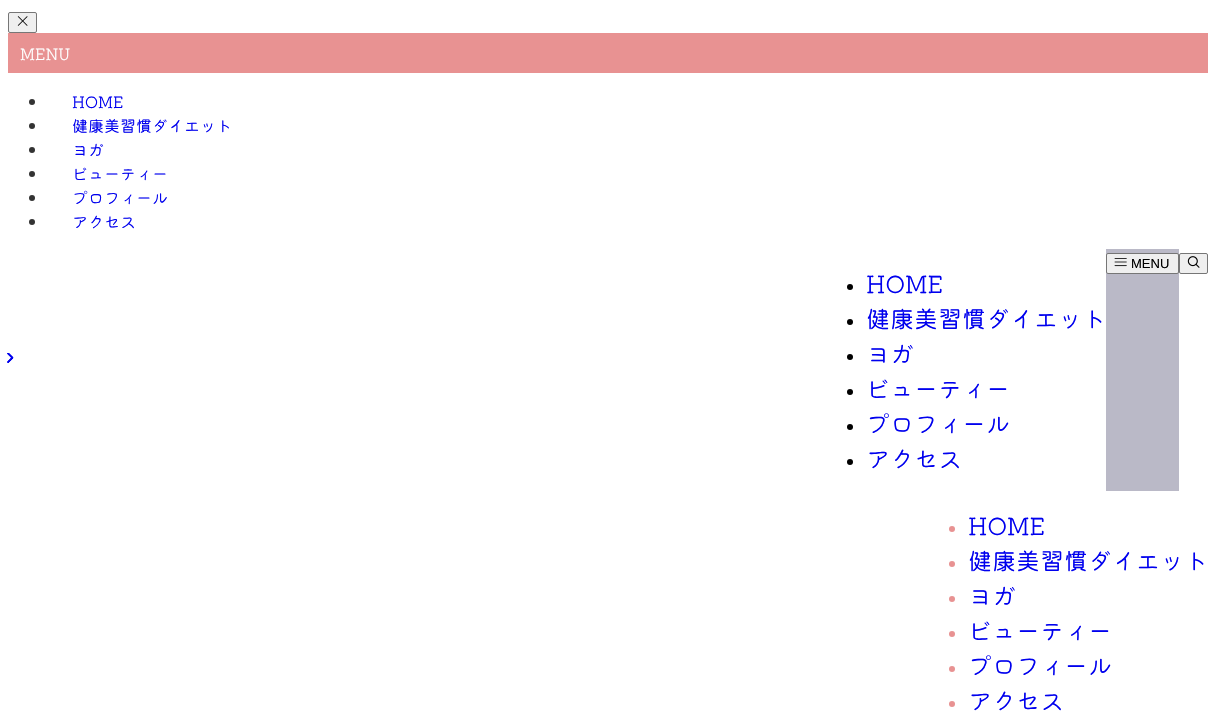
void draw(SkCanvas* canvas) {
	SkPaint paint;
	paint.setAntiAlias(true);
	canvas->clear(0xffffffff);
	paint.setColor(0xffefefef);
	canvas->drawRoundRect(SkRect::MakeXYWH(8.5, 12.5, 28, 20), 1.5, 1.5, paint);
	paint.setStroke(true);
	paint.setStrokeWidth(1);
	paint.setColor(0xff767676);
	canvas->drawRoundRect(SkRect::MakeXYWH(8.5, 12.5, 28, 20), 1.5, 1.5, paint);
	canvas->drawImageRect(SkImages::DeferredFromEncodedData(SkData::MakeFromFileName("img1.png")), SkRect::MakeXYWH(17, 16, 11, 10), SkSamplingOptions());
	paint.setStroke(false);
	paint.setColor(0xffe89292);
	canvas->drawRect(SkRect::MakeXYWH(8, 33, 1200, 40), paint);
	SkFont f1(fontMgr->matchFamilyStyle("Kiwi Maru", SkFontStyle(300, SkFontStyle::kNormal_Width, SkFontStyle::kUpright_Slant)), 16);
	f1.setSubpixel(true);
	paint.setColor(0xffffffff);
	canvas->drawString("MENU", 20, 60, f1, paint);
	paint.setColor(0xff333333);
	canvas->drawCircle(32, 102, 3, paint);
	paint.setColor(0xff0000ee);
	canvas->drawString("HOME", 72, 108, f1, paint);
	canvas->drawImageRect(SkImages::DeferredFromEncodedData(SkData::MakeFromFileName("img2.png")), SkRect::MakeXYWH(7, 353, 7, 10), SkSamplingOptions());
	paint.setColor(0xff333333);
	canvas->drawCircle(32, 126, 3, paint);
	paint.setColor(0xff0000ee);
	canvas->drawString("健康美習慣ダイエット", 72, 132, f1, paint);
	canvas->drawImageRect(SkImages::DeferredFromEncodedData(SkData::MakeFromFileName("img3.png")), SkRect::MakeXYWH(7, 353, 7, 10), SkSamplingOptions());
	paint.setColor(0xff333333);
	canvas->drawCircle(32, 150, 3, paint);
	paint.setColor(0xff0000ee);
	canvas->drawString("ヨガ", 72, 156, f1, paint);
	canvas->drawImageRect(SkImages::DeferredFromEncodedData(SkData::MakeFromFileName("img4.png")), SkRect::MakeXYWH(7, 353, 7, 10), SkSamplingOptions());
	paint.setColor(0xff333333);
	canvas->drawCircle(32, 174, 3, paint);
	paint.setColor(0xff0000ee);
	canvas->drawString("ビューティー", 72, 180, f1, paint);
	canvas->drawImageRect(SkImages::DeferredFromEncodedData(SkData::MakeFromFileName("img5.png")), SkRect::MakeXYWH(7, 353, 7, 10), SkSamplingOptions());
	paint.setColor(0xff333333);
	canvas->drawCircle(32, 198, 3, paint);
	paint.setColor(0xff0000ee);
	canvas->drawString("プロフィール", 72, 204, f1, paint);
	canvas->drawImageRect(SkImages::DeferredFromEncodedData(SkData::MakeFromFileName("img6.png")), SkRect::MakeXYWH(7, 353, 7, 10), SkSamplingOptions());
	paint.setColor(0xff333333);
	canvas->drawCircle(32, 222, 3, paint);
	paint.setColor(0xff0000ee);
	canvas->drawString("アクセス", 72, 228, f1, paint);
	canvas->drawImageRect(SkImages::DeferredFromEncodedData(SkData::MakeFromFileName("img7.png")), SkRect::MakeXYWH(7, 353, 7, 10), SkSamplingOptions());
	paint.setColor(0xffbab9c7);
	canvas->drawRect(SkRect::MakeXYWH(1106, 249, 73, 242), paint);
	paint.setColor(0xffefefef);
	canvas->drawRoundRect(SkRect::MakeXYWH(1106.5, 253.5, 72, 20), 1.5, 1.5, paint);
	paint.setStroke(true);
	paint.setColor(0xff767676);
	canvas->drawRoundRect(SkRect::MakeXYWH(1106.5, 253.5, 72, 20), 1.5, 1.5, paint);
	canvas->drawImageRect(SkImages::DeferredFromEncodedData(SkData::MakeFromFileName("img8.png")), SkRect::MakeXYWH(1114, 258, 13, 9), SkSamplingOptions());
	SkFont f2(fontMgr->matchFamilyStyle("Liberation Sans", SkFontStyle::Normal()), 13);
	f2.setSubpixel(true);
	paint.setStroke(false);
	paint.setColor(0xff000000);
	canvas->drawString("MENU", 1131, 268, f2, paint);
	paint.setColor(0xffefefef);
	canvas->drawRoundRect(SkRect::MakeXYWH(1179.5, 253.5, 28, 20), 1.5, 1.5, paint);
	paint.setStroke(true);
	paint.setColor(0xff767676);
	canvas->drawRoundRect(SkRect::MakeXYWH(1179.5, 253.5, 28, 20), 1.5, 1.5, paint);
	canvas->drawImageRect(SkImages::DeferredFromEncodedData(SkData::MakeFromFileName("img9.png")), SkRect::MakeXYWH(1187, 256, 13, 12), SkSamplingOptions());
	paint.setStroke(false);
	paint.setColor(0xff000000);
	canvas->drawCircle(850, 287, 3, paint);
	SkFont f3(fontMgr->matchFamilyStyle("Kiwi Maru", SkFontStyle(300, SkFontStyle::kNormal_Width, SkFontStyle::kUpright_Slant)), 24);
	f3.setSubpixel(true);
	paint.setColor(0xff0000ee);
	canvas->drawString("HOME", 866, 293, f3, paint);
	paint.setColor(0xff000000);
	canvas->drawCircle(850, 322, 3, paint);
	paint.setColor(0xff0000ee);
	canvas->drawString("健康美習慣ダイエット", 866, 328, f3, paint);
	paint.setColor(0xff000000);
	canvas->drawCircle(850, 357, 3, paint);
	paint.setColor(0xff0000ee);
	canvas->drawString("ヨガ", 866, 363, f3, paint);
	paint.setColor(0xff000000);
	canvas->drawCircle(850, 392, 3, paint);
	paint.setColor(0xff0000ee);
	canvas->drawString("ビューティー", 866, 398, f3, paint);
	paint.setColor(0xff000000);
	canvas->drawCircle(850, 427, 3, paint);
	paint.setColor(0xff0000ee);
	canvas->drawString("プロフィール", 866, 433, f3, paint);
	paint.setColor(0xff000000);
	canvas->drawCircle(850, 462, 3, paint);
	paint.setColor(0xff0000ee);
	canvas->drawString("アクセス", 866, 468, f3, paint);
	paint.setColor(0xffe89292);
	canvas->drawCircle(952, 529, 3, paint);
	paint.setColor(0xff0000ee);
	canvas->drawString("HOME", 968, 535, f3, paint);
	paint.setColor(0xffe89292);
	canvas->drawCircle(952, 564, 3, paint);
	paint.setColor(0xff0000ee);
	canvas->drawString("健康美習慣ダイエット", 968, 570, f3, paint);
	paint.setColor(0xffe89292);
	canvas->drawCircle(952, 599, 3, paint);
	paint.setColor(0xff0000ee);
	canvas->drawString("ヨガ", 968, 605, f3, paint);
	paint.setColor(0xffe89292);
	canvas->drawCircle(952, 634, 3, paint);
	paint.setColor(0xff0000ee);
	canvas->drawString("ビューティー", 968, 640, f3, paint);
	paint.setColor(0xffe89292);
	canvas->drawCircle(952, 669, 3, paint);
	paint.setColor(0xff0000ee);
	canvas->drawString("プロフィール", 968, 675, f3, paint);
	paint.setColor(0xffe89292);
	canvas->drawCircle(952, 704, 3, paint);
	paint.setColor(0xff0000ee);
	canvas->drawString("アクセス", 968, 710, f3, paint);
}
